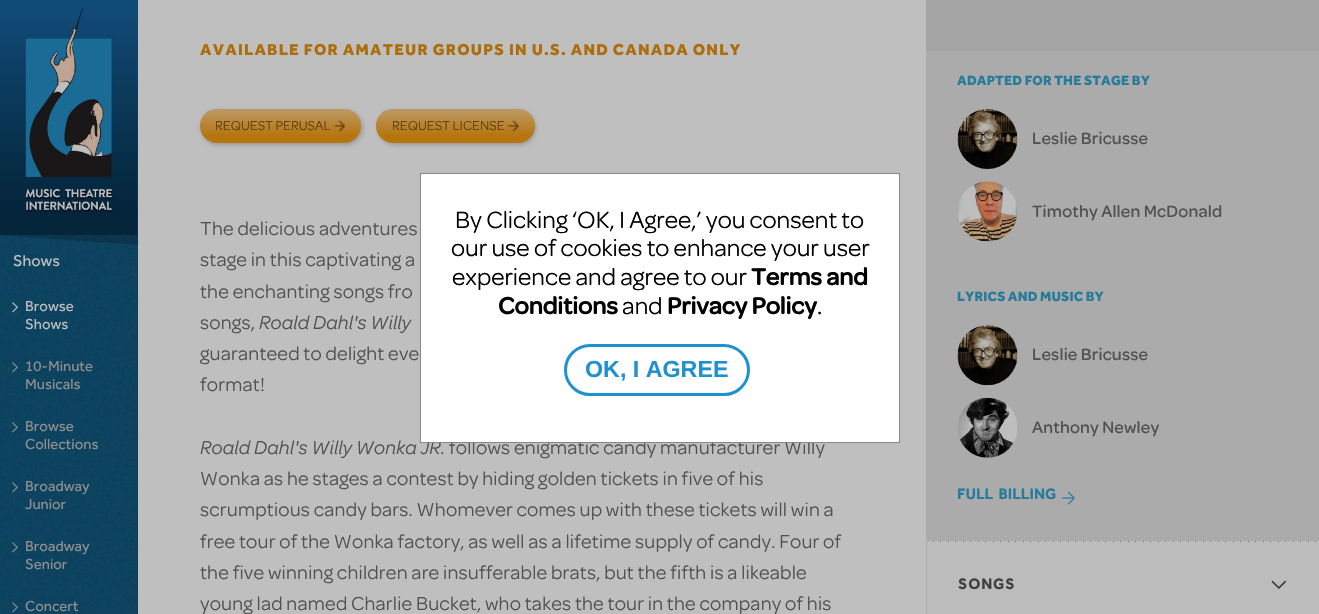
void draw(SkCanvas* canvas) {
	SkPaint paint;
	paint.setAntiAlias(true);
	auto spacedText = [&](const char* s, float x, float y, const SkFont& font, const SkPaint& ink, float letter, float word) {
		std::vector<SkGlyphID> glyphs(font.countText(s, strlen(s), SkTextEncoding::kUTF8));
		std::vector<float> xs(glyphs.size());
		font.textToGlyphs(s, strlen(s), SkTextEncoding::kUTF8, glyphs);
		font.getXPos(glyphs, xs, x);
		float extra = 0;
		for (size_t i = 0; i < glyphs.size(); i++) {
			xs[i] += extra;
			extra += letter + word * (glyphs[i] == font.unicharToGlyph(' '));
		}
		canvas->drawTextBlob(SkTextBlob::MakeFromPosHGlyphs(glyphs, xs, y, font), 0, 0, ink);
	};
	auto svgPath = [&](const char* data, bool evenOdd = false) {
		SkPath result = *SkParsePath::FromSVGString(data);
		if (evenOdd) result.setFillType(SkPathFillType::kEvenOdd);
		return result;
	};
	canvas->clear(0xffbfbfbf);
	paint.setColor(0xff114173);
	canvas->drawRect(SkRect::MakeXYWH(137, 0, 1, 235), paint);
	canvas->drawImageRect(SkImages::DeferredFromEncodedData(SkData::MakeFromFileName("img1.png")), SkRect::MakeXYWH(0, 0, 138, 235), SkSamplingOptions());
	paint.setColor(0xff0b3e59);
	canvas->drawRect(SkRect::MakeXYWH(0, 235, 138, 379), paint);
	canvas->drawImageRect(SkImages::DeferredFromEncodedData(SkData::MakeFromFileName("img2.png")), SkRect::MakeXYWH(0, 235, 137, 50), SkSamplingOptions());
	SkFont f1(fontMgr->matchFamilyStyle("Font", SkFontStyle::Normal()), 16.25);
	f1.setSubpixel(true);
	paint.setColor(0xffbfbfbf);
	canvas->drawString("Shows", 13, 266, f1, paint);
	canvas->drawImageRect(SkImages::DeferredFromEncodedData(SkData::MakeFromFileName("img3.png")), SkRect::MakeXYWH(0, 285, 137, 329), SkSamplingOptions());
	paint.setColor(0x33000000);
	canvas->drawPath(svgPath("M138 235V245L0 235Z"), paint);
	canvas->drawImageRect(SkImages::DeferredFromEncodedData(SkData::MakeFromFileName("img4.png")), SkRect::MakeXYWH(12, 302, 6, 11), SkSamplingOptions());
	SkFont f2(fontMgr->matchFamilyStyle("Font", SkFontStyle::Normal()), 15);
	f2.setSubpixel(true);
	paint.setColor(0xffbfbfbf);
	canvas->drawString("Browse", 25, 311, f2, paint);
	canvas->drawString("Shows", 25, 329, f2, paint);
	canvas->drawImageRect(SkImages::DeferredFromEncodedData(SkData::MakeFromFileName("img5.png")), SkRect::MakeXYWH(12, 362, 6, 11), SkSamplingOptions());
	paint.setColor(0xff8f8f8f);
	canvas->drawString("10-Minute", 25, 371, f2, paint);
	canvas->drawString("Musicals", 25, 389, f2, paint);
	canvas->drawImageRect(SkImages::DeferredFromEncodedData(SkData::MakeFromFileName("img6.png")), SkRect::MakeXYWH(12, 422, 6, 11), SkSamplingOptions());
	canvas->drawString("Browse", 25, 431, f2, paint);
	canvas->drawString("Collections", 25, 449, f2, paint);
	canvas->drawImageRect(SkImages::DeferredFromEncodedData(SkData::MakeFromFileName("img7.png")), SkRect::MakeXYWH(12, 482, 6, 11), SkSamplingOptions());
	canvas->drawString("Broadway", 25, 491, f2, paint);
	canvas->drawString("Junior", 25, 509, f2, paint);
	canvas->drawImageRect(SkImages::DeferredFromEncodedData(SkData::MakeFromFileName("img8.png")), SkRect::MakeXYWH(12, 542, 6, 11), SkSamplingOptions());
	canvas->drawString("Broadway", 25, 551, f2, paint);
	canvas->drawString("Senior", 25, 569, f2, paint);
	canvas->drawImageRect(SkImages::DeferredFromEncodedData(SkData::MakeFromFileName("img9.png")), SkRect::MakeXYWH(12, 602, 6, 11), SkSamplingOptions());
	canvas->drawString("Concert", 25, 611, f2, paint);
	SkFont f3(fontMgr->matchFamilyStyle("Font", SkFontStyle(900, SkFontStyle::kNormal_Width, SkFontStyle::kUpright_Slant)), 16.25);
	f3.setSubpixel(true);
	paint.setColor(0xffac6d0a);
	spacedText("AVAILABLE FOR AMATEUR GROUPS IN U.S. AND CANADA ONLY", 200, 55, f3, paint, 1.25, 0);
	paint.setColor(0x33000000);
	paint.setMaskFilter(SkMaskFilter::MakeBlur(kNormal_SkBlurStyle, 2));
	canvas->drawRoundRect(SkRect::MakeXYWH(201, 111, 162, 34), 17, 17, paint);
	paint.setMaskFilter(nullptr);
	paint.setColor(0xffb7750d);
	canvas->drawRoundRect(SkRect::MakeXYWH(200, 109, 161, 34), 17, 17, paint);
	canvas->drawImageRect(SkImages::DeferredFromEncodedData(SkData::MakeFromFileName("img10.png")), SkRect::MakeXYWH(200, 109, 161, 26), SkSamplingOptions());
	SkFont f4(fontMgr->matchFamilyStyle("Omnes", SkFontStyle::Normal()), 13.75);
	f4.setSubpixel(true);
	paint.setColor(0xff633f0e);
	canvas->drawString("REQUEST PERUSAL", 215, 130, f4, paint);
	paint.setColor(0x33000000);
	paint.setMaskFilter(SkMaskFilter::MakeBlur(kNormal_SkBlurStyle, 2));
	canvas->drawRoundRect(SkRect::MakeXYWH(378, 111, 158, 34), 17, 17, paint);
	paint.setMaskFilter(nullptr);
	paint.setColor(0xffb7750d);
	canvas->drawRoundRect(SkRect::MakeXYWH(376, 109, 159, 34), 17, 17, paint);
	canvas->drawImageRect(SkImages::DeferredFromEncodedData(SkData::MakeFromFileName("img11.png")), SkRect::MakeXYWH(376, 109, 159, 26), SkSamplingOptions());
	paint.setColor(0xff633f0e);
	canvas->drawString("REQUEST LICENSE", 392, 130, f4, paint);
	SkFont f5(fontMgr->matchFamilyStyle("Omnes", SkFontStyle::Normal()), 20);
	f5.setSubpixel(true);
	paint.setColor(0xff515151);
	spacedText("The delicious adventures", 200, 235, f5, paint, 0.2, 0);
	spacedText("stage in this captivating a", 200, 266, f5, paint, 0.2, 0);
	spacedText("the enchanting songs fro", 200, 298, f5, paint, 0.2, 0);
	spacedText("songs,", 200, 329, f5, paint, 0.2, 0);
	SkFont f6(fontMgr->matchFamilyStyle("Omnes", SkFontStyle::Italic()), 20);
	f6.setSubpixel(true);
	spacedText("Roald Dahl's Willy", 259, 329, f6, paint, 0.2, 0);
	spacedText("guaranteed to delight eve", 200, 360, f5, paint, 0.2, 0);
	spacedText("format!", 200, 391, f5, paint, 0.2, 0);
	spacedText("Roald Dahl's Willy Wonka JR.", 200, 454, f6, paint, 0.2, 0);
	spacedText("follows enigmatic candy manufacturer Willy", 449, 454, f5, paint, 0.2, 0);
	spacedText("Wonka as he stages a contest by hiding golden tickets in five of his", 200, 485, f5, paint, 0.2, 0);
	spacedText("scrumptious candy bars. Whomever comes up with these tickets will win a", 200, 516, f5, paint, 0.2, 0);
	spacedText("free tour of the Wonka factory, as well as a lifetime supply of candy. Four of", 200, 548, f5, paint, 0.2, 0);
	spacedText("the five winning children are insufferable brats, but the fifth is a likeable", 200, 579, f5, paint, 0.2, 0);
	spacedText("young lad named Charlie Bucket, who takes the tour in the company of his", 200, 610, f5, paint, 0.2, 0);
	paint.setColor(0xffababab);
	canvas->drawRect(SkRect::MakeXYWH(926, 51, 393, 490), paint);
	paint.setColor(0xffa5a5a5);
	canvas->drawRect(SkRect::MakeXYWH(926, 0, 393, 51), paint);
	SkFont f7(fontMgr->matchFamilyStyle("Font", SkFontStyle(900, SkFontStyle::kNormal_Width, SkFontStyle::kUpright_Slant)), 13.75);
	f7.setSubpixel(true);
	paint.setColor(0xff287c9b);
	spacedText("ADAPTED FOR THE STAGE BY", 957, 85, f7, paint, 0.2, 0);
	canvas->drawImageRect(SkImages::DeferredFromEncodedData(SkData::MakeFromFileName("img12.png")), SkRect::MakeXYWH(957, 109, 61, 60), SkSamplingOptions());
	SkFont f8(fontMgr->matchFamilyStyle("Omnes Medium", SkFontStyle(500, SkFontStyle::kNormal_Width, SkFontStyle::kUpright_Slant)), 17.5);
	f8.setSubpixel(true);
	paint.setColor(0xff515151);
	spacedText("Leslie Bricusse", 1032, 144, f8, paint, 0.2, 0);
	canvas->drawImageRect(SkImages::DeferredFromEncodedData(SkData::MakeFromFileName("img13.png")), SkRect::MakeXYWH(958, 181, 60, 61), SkSamplingOptions());
	spacedText("Timothy Allen McDonald", 1032, 217, f8, paint, 0.2, 0);
	paint.setColor(0xff287c9b);
	spacedText("LYRICS AND MUSIC BY", 957, 301, f7, paint, 0.2, 0);
	canvas->drawImageRect(SkImages::DeferredFromEncodedData(SkData::MakeFromFileName("img14.png")), SkRect::MakeXYWH(957, 325, 61, 61), SkSamplingOptions());
	paint.setColor(0xff515151);
	spacedText("Leslie Bricusse", 1032, 360, f8, paint, 0.2, 0);
	canvas->drawImageRect(SkImages::DeferredFromEncodedData(SkData::MakeFromFileName("img15.png")), SkRect::MakeXYWH(958, 397, 60, 61), SkSamplingOptions());
	spacedText("Anthony Newley", 1032, 433, f8, paint, 0.2, 0);
	SkFont f9(fontMgr->matchFamilyStyle("Font", SkFontStyle::Bold()), 15);
	f9.setSubpixel(true);
	paint.setColor(0xff287c9b);
	spacedText("FULL BILLING", 957, 499, f9, paint, 0.4, 2);
	canvas->drawImageRect(SkImages::DeferredFromEncodedData(SkData::MakeFromFileName("img16.png")), SkRect::MakeXYWH(1062, 491, 13, 14), SkSamplingOptions());
	paint.setColor(0xffbcbcbc);
	canvas->drawRect(SkRect::MakeXYWH(927, 541, 392, 73), paint);
	canvas->drawImageRect(SkImages::DeferredFromEncodedData(SkData::MakeFromFileName("img17.png")), SkRect::MakeXYWH(933, 541, 383, 1), SkSamplingOptions());
	paint.setColor(0xffababab);
	canvas->drawRect(SkRect::MakeXYWH(926, 541, 1, 73), paint);
	paint.setColor(0xff404040);
	spacedText("SONGS", 958, 589, f9, paint, 1.25, 0);
	canvas->drawImageRect(SkImages::DeferredFromEncodedData(SkData::MakeFromFileName("img18.png")), SkRect::MakeXYWH(1271, 580, 16, 9), SkSamplingOptions());
	paint.setColor(0xffffffff);
	canvas->drawRect(SkRect::MakeXYWH(420.5, 173.5, 479, 269), paint);
	paint.setStroke(true);
	paint.setStrokeWidth(1);
	paint.setColor(0xff888888);
	canvas->drawRect(SkRect::MakeXYWH(420.5, 173.5, 479, 269), paint);
	SkFont f10(fontMgr->matchFamilyStyle("Omnes", SkFontStyle::Normal()), 25);
	f10.setSubpixel(true);
	paint.setStroke(false);
	paint.setColor(0xff000000);
	canvas->drawString("By Clicking ‘OK, I Agree,’ you consent to", 455, 228, f10, paint);
	canvas->drawString("our use of cookies to enhance your user", 451, 256, f10, paint);
	canvas->drawString("experience and agree to our", 452, 285, f10, paint);
	SkFont f11(fontMgr->matchFamilyStyle("Omnes Medium", SkFontStyle::Bold()), 25);
	f11.setSubpixel(true);
	canvas->drawString("Terms and", 751, 285, f11, paint);
	canvas->drawString("Conditions", 498, 314, f11, paint);
	canvas->drawString("and", 622, 314, f10, paint);
	canvas->drawString("Privacy Policy", 667, 314, f11, paint);
	canvas->drawString(".", 817, 314, f10, paint);
	paint.setStroke(true);
	paint.setStrokeWidth(3);
	paint.setColor(0xff1e91ce);
	canvas->drawRoundRect(SkRect::MakeXYWH(565.5, 345.5, 183, 49), 24.5, 24.5, paint);
	SkFont f12(fontMgr->matchFamilyStyle("Liberation Sans", SkFontStyle::Bold()), 23.25);
	f12.setSubpixel(true);
	paint.setStroke(false);
	canvas->drawString("OK, I AGREE", 585, 377, f12, paint);
}
